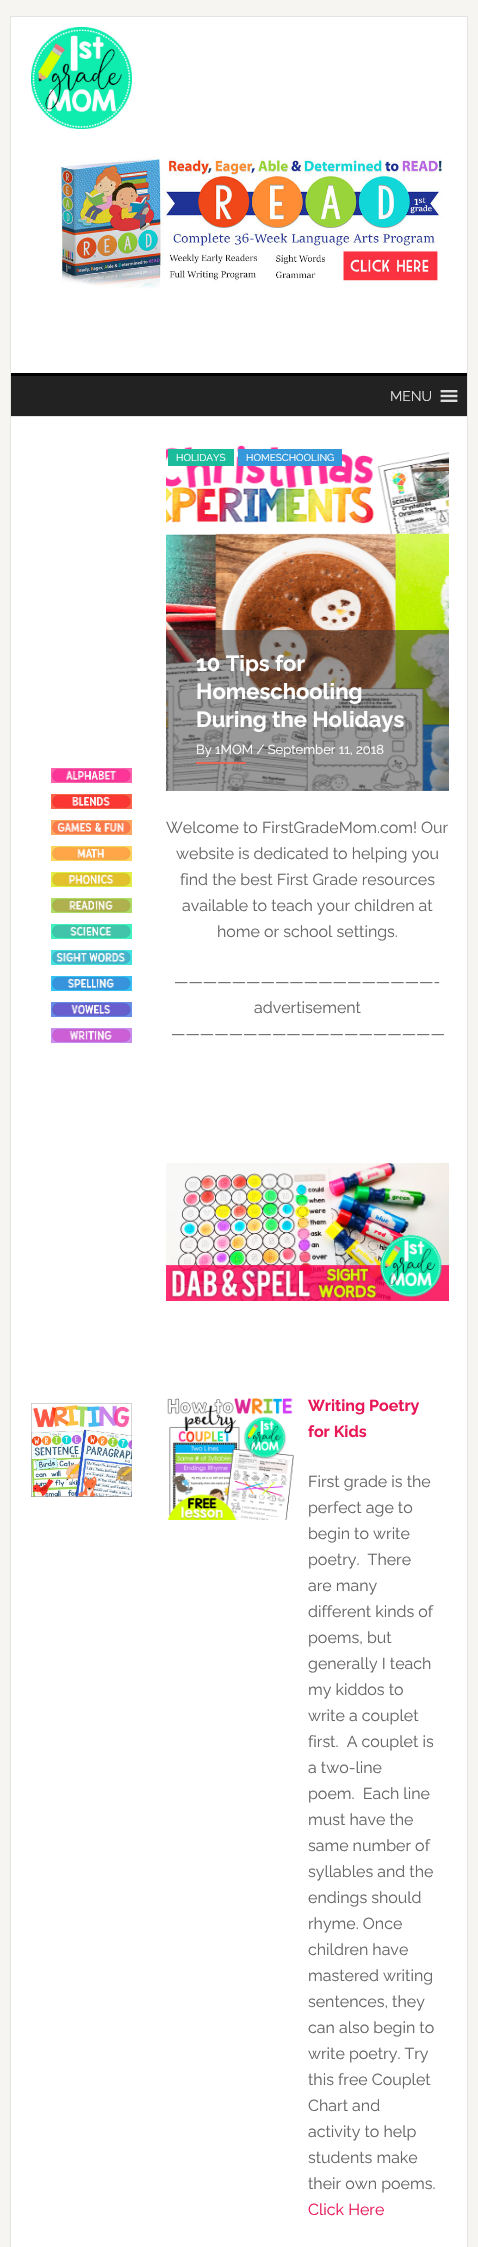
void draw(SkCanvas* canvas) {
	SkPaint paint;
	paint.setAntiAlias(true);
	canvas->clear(0xfff6f5f2);
	paint.setColor(0xffffffff);
	canvas->drawRect(SkRect::MakeXYWH(10.5, 16.5, 457, 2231), paint);
	paint.setStroke(true);
	paint.setStrokeWidth(1);
	paint.setColor(0xffe3e3e3);
	canvas->drawRect(SkRect::MakeXYWH(10.5, 16.5, 457, 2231), paint);
	canvas->drawImageRect(SkImages::DeferredFromEncodedData(SkData::MakeFromFileName("img1.png")), SkRect::MakeXYWH(31, 27, 101, 102), SkSamplingOptions());
	canvas->drawImageRect(SkImages::DeferredFromEncodedData(SkData::MakeFromFileName("img2.png")), SkRect::MakeXYWH(60, 157, 383, 132), SkSamplingOptions());
	paint.setStroke(false);
	paint.setColor(0xff000000);
	canvas->drawRect(SkRect::MakeXYWH(11, 373, 456, 3), paint);
	paint.setColor(0xffe3e3e3);
	canvas->drawRect(SkRect::MakeXYWH(11, 416, 456, 1), paint);
	paint.setColor(0xff222222);
	canvas->drawRect(SkRect::MakeXYWH(11, 376, 456, 40), paint);
	SkFont f1(fontMgr->matchFamilyStyle("Raleway", SkFontStyle::Normal()), 14);
	f1.setSubpixel(true);
	paint.setColor(0xffdddddd);
	canvas->drawString("MENU", 390, 401, f1, paint);
	canvas->drawImageRect(SkImages::DeferredFromEncodedData(SkData::MakeFromFileName("img3.png")), SkRect::MakeXYWH(440, 390, 18, 12), SkSamplingOptions());
	canvas->drawImageRect(SkImages::DeferredFromEncodedData(SkData::MakeFromFileName("img4.png")), SkRect::MakeXYWH(51, 768, 81, 15), SkSamplingOptions());
	canvas->drawImageRect(SkImages::DeferredFromEncodedData(SkData::MakeFromFileName("img5.png")), SkRect::MakeXYWH(51, 794, 81, 15), SkSamplingOptions());
	canvas->drawImageRect(SkImages::DeferredFromEncodedData(SkData::MakeFromFileName("img6.png")), SkRect::MakeXYWH(51, 820, 81, 15), SkSamplingOptions());
	canvas->drawImageRect(SkImages::DeferredFromEncodedData(SkData::MakeFromFileName("img7.png")), SkRect::MakeXYWH(51, 846, 81, 15), SkSamplingOptions());
	canvas->drawImageRect(SkImages::DeferredFromEncodedData(SkData::MakeFromFileName("img8.png")), SkRect::MakeXYWH(51, 872, 81, 15), SkSamplingOptions());
	canvas->drawImageRect(SkImages::DeferredFromEncodedData(SkData::MakeFromFileName("img9.png")), SkRect::MakeXYWH(51, 898, 81, 15), SkSamplingOptions());
	canvas->drawImageRect(SkImages::DeferredFromEncodedData(SkData::MakeFromFileName("img10.png")), SkRect::MakeXYWH(51, 924, 81, 15), SkSamplingOptions());
	canvas->drawImageRect(SkImages::DeferredFromEncodedData(SkData::MakeFromFileName("img11.png")), SkRect::MakeXYWH(51, 950, 81, 15), SkSamplingOptions());
	canvas->drawImageRect(SkImages::DeferredFromEncodedData(SkData::MakeFromFileName("img12.png")), SkRect::MakeXYWH(51, 976, 81, 15), SkSamplingOptions());
	canvas->drawImageRect(SkImages::DeferredFromEncodedData(SkData::MakeFromFileName("img13.png")), SkRect::MakeXYWH(51, 1002, 81, 15), SkSamplingOptions());
	canvas->drawImageRect(SkImages::DeferredFromEncodedData(SkData::MakeFromFileName("img14.png")), SkRect::MakeXYWH(51, 1028, 81, 15), SkSamplingOptions());
	canvas->drawImageRect(SkImages::DeferredFromEncodedData(SkData::MakeFromFileName("img15.png")), SkRect::MakeXYWH(166, 441, 283, 350), SkSamplingOptions());
	paint.setColor(0xff1abc9c);
	canvas->drawRect(SkRect::MakeXYWH(168, 449, 66, 17), paint);
	SkFont f2(fontMgr->matchFamilyStyle("Raleway", SkFontStyle::Normal()), 10);
	f2.setSubpixel(true);
	paint.setColor(0xffffffff);
	canvas->drawString("HOLIDAYS", 176, 461, f2, paint);
	paint.setColor(0xff3498db);
	canvas->drawRect(SkRect::MakeXYWH(238, 449, 104, 17), paint);
	paint.setColor(0xffffffff);
	canvas->drawString("HOMESCHOOLING", 246, 461, f2, paint);
	paint.setColor(0x80333333);
	canvas->drawRect(SkRect::MakeXYWH(166, 630, 283, 161), paint);
	SkFont f3(fontMgr->matchFamilyStyle("Raleway", SkFontStyle::Bold()), 22);
	f3.setSubpixel(true);
	paint.setColor(0xffffffff);
	canvas->drawString("10 Tips for", 196, 671, f3, paint);
	canvas->drawString("Homeschooling", 196, 699, f3, paint);
	canvas->drawString("During the Holidays", 196, 727, f3, paint);
	SkFont f4(fontMgr->matchFamilyStyle("Raleway", SkFontStyle::Normal()), 13);
	f4.setSubpixel(true);
	canvas->drawString("By 1MOM / September 11, 2018", 196, 754, f4, paint);
	paint.setColor(0xffe96656);
	canvas->drawRect(SkRect::MakeXYWH(196, 762, 50, 2), paint);
	SkFont f5(fontMgr->matchFamilyStyle("Raleway", SkFontStyle::Normal()), 16);
	f5.setSubpixel(true);
	paint.setColor(0xff666666);
	canvas->drawString("Welcome to FirstGradeMom.com! Our", 166, 833, f5, paint);
	canvas->drawString("website is dedicated to helping you", 176, 859, f5, paint);
	canvas->drawString("find the best First Grade resources", 180, 885, f5, paint);
	canvas->drawString("available to teach your children at", 182, 911, f5, paint);
	canvas->drawString("home or school settings.", 217, 937, f5, paint);
	canvas->drawString("——————————————————-", 174, 987, f5, paint);
	canvas->drawString("advertisement", 254, 1013, f5, paint);
	canvas->drawString("———————————————————", 171, 1039, f5, paint);
	canvas->drawImageRect(SkImages::DeferredFromEncodedData(SkData::MakeFromFileName("img16.png")), SkRect::MakeXYWH(166, 1163, 283, 138), SkSamplingOptions());
	canvas->drawImageRect(SkImages::DeferredFromEncodedData(SkData::MakeFromFileName("img17.png")), SkRect::MakeXYWH(31, 1403, 101, 94), SkSamplingOptions());
	canvas->drawImageRect(SkImages::DeferredFromEncodedData(SkData::MakeFromFileName("img18.png")), SkRect::MakeXYWH(167, 1398, 127, 122), SkSamplingOptions());
	SkFont f6(fontMgr->matchFamilyStyle("Raleway", SkFontStyle::Bold()), 16);
	f6.setSubpixel(true);
	paint.setColor(0xffe81857);
	canvas->drawString("Writing Poetry", 308, 1411, f6, paint);
	canvas->drawString("for Kids", 308, 1437, f6, paint);
	paint.setColor(0xff666666);
	canvas->drawString("First grade is the", 308, 1487, f5, paint);
	canvas->drawString("perfect age to", 308, 1513, f5, paint);
	canvas->drawString("begin to write", 308, 1539, f5, paint);
	canvas->drawString("poetry.  There", 308, 1565, f5, paint);
	canvas->drawString("are many", 308, 1591, f5, paint);
	canvas->drawString("different kinds of", 308, 1617, f5, paint);
	canvas->drawString("poems, but", 308, 1643, f5, paint);
	canvas->drawString("generally I teach", 308, 1669, f5, paint);
	canvas->drawString("my kiddos to", 308, 1695, f5, paint);
	canvas->drawString("write a couplet", 308, 1721, f5, paint);
	canvas->drawString("first.  A couplet is", 308, 1747, f5, paint);
	canvas->drawString("a two-line", 308, 1773, f5, paint);
	canvas->drawString("poem.  Each line", 308, 1799, f5, paint);
	canvas->drawString("must have the", 308, 1825, f5, paint);
	canvas->drawString("same number of", 308, 1851, f5, paint);
	canvas->drawString("syllables and the", 308, 1877, f5, paint);
	canvas->drawString("endings should", 308, 1903, f5, paint);
	canvas->drawString("rhyme. Once", 308, 1929, f5, paint);
	canvas->drawString("children have", 308, 1955, f5, paint);
	canvas->drawString("mastered writing", 308, 1981, f5, paint);
	canvas->drawString("sentences, they", 308, 2007, f5, paint);
	canvas->drawString("can also begin to", 308, 2033, f5, paint);
	canvas->drawString("write poetry. Try", 308, 2059, f5, paint);
	canvas->drawString("this free Couplet", 308, 2085, f5, paint);
	canvas->drawString("Chart and", 308, 2111, f5, paint);
	canvas->drawString("activity to help", 308, 2137, f5, paint);
	canvas->drawString("students make", 308, 2163, f5, paint);
	canvas->drawString("their own poems.", 308, 2189, f5, paint);
	paint.setColor(0xffe81857);
	canvas->drawString("Click Here", 308, 2215, f5, paint);
}
